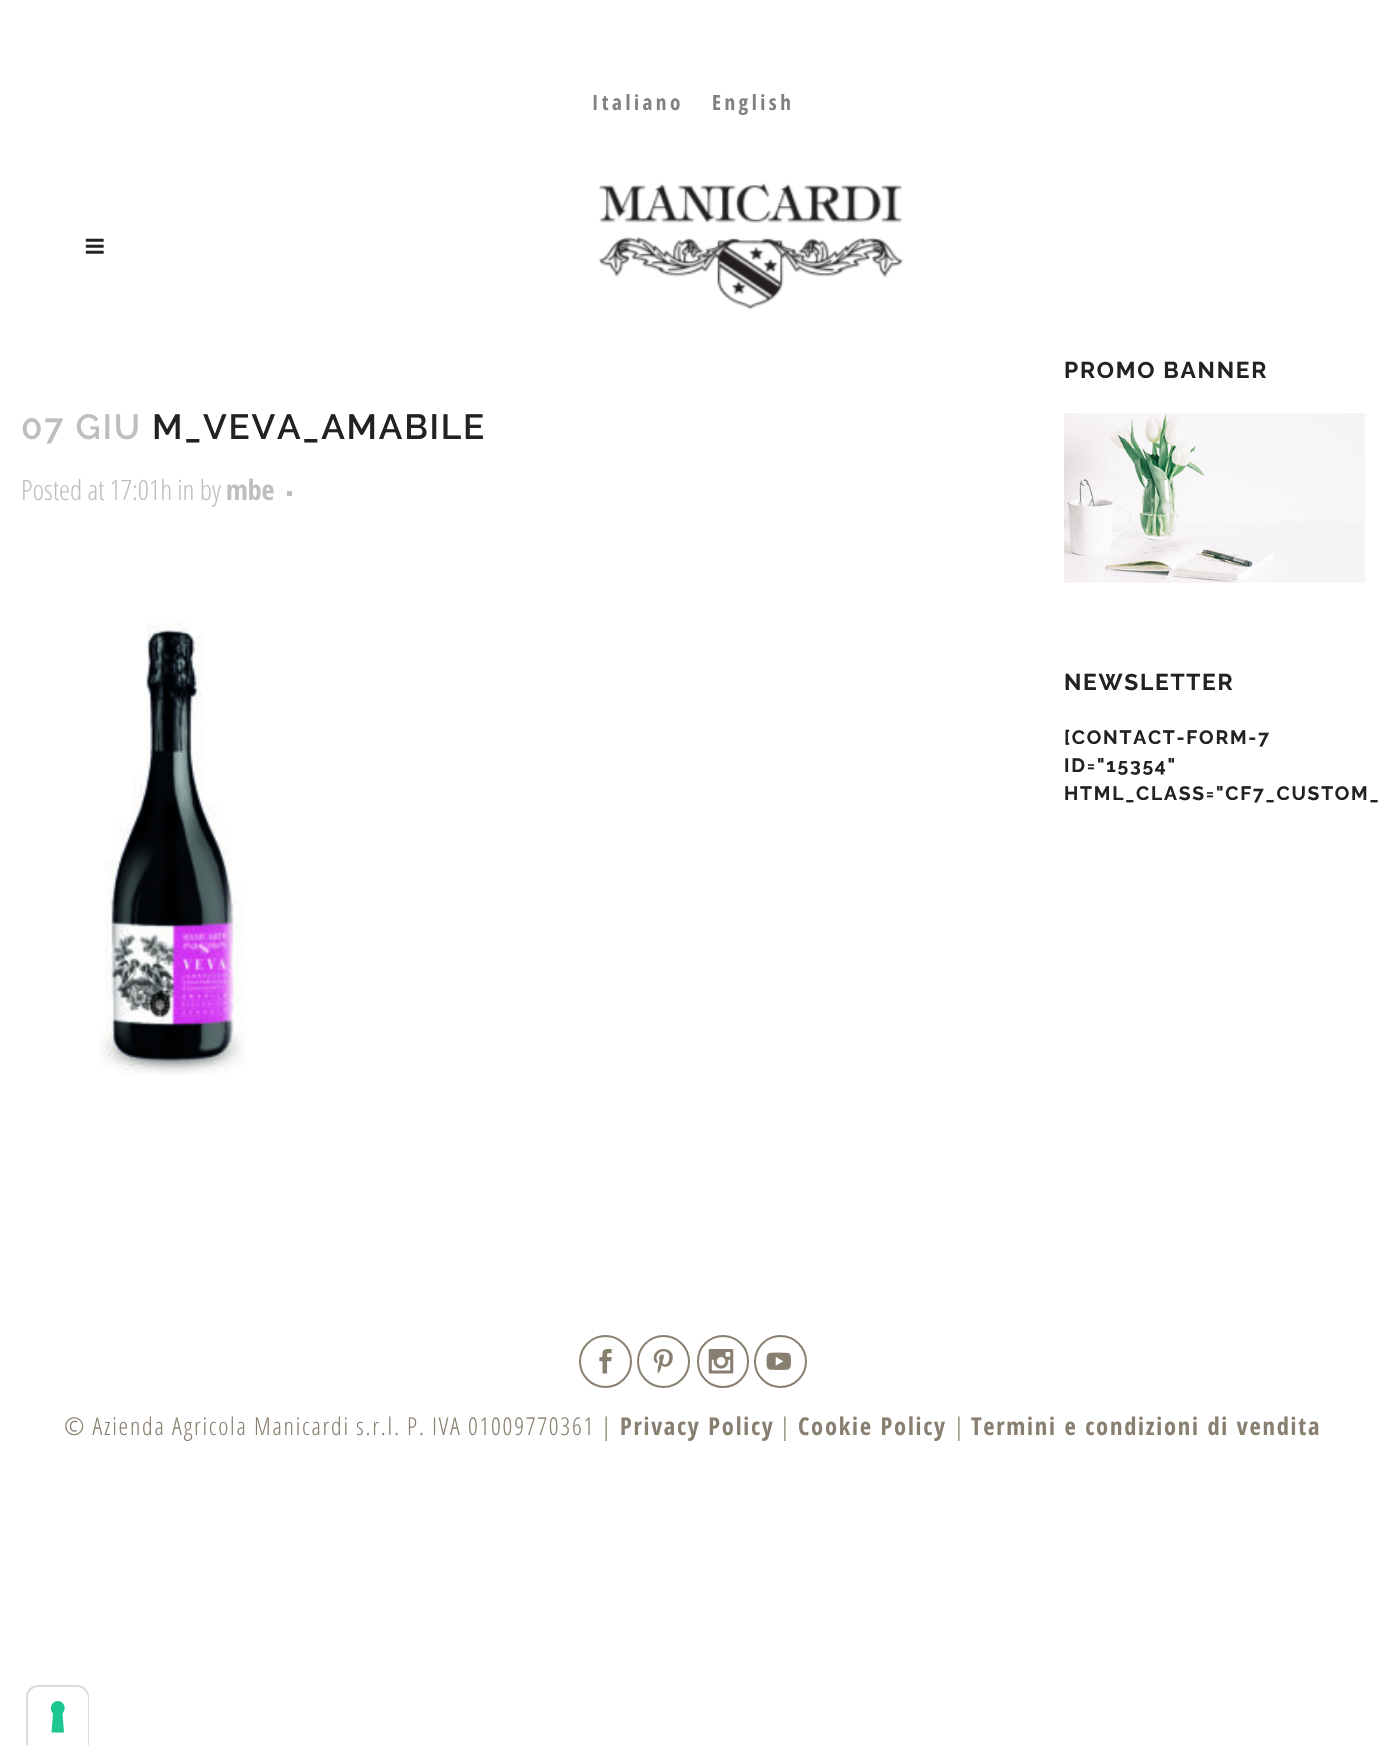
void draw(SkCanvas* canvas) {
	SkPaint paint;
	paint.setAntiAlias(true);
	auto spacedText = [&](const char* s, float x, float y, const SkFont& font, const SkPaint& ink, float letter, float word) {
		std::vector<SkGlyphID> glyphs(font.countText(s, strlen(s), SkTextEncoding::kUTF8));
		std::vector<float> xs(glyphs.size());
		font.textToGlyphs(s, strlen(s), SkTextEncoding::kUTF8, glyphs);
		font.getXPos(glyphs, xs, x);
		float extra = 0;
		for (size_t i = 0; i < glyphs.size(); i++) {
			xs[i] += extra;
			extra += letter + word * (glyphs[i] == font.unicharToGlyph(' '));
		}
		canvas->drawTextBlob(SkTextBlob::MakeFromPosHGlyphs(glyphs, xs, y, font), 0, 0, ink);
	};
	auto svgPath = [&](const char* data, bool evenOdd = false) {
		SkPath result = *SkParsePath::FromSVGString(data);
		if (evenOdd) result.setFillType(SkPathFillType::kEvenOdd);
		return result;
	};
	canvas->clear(0xffffffff);
	SkFont f1(fontMgr->matchFamilyStyle("Open Sans Condensed", SkFontStyle::Bold()), 21);
	f1.setSubpixel(true);
	paint.setColor(0xff818181);
	spacedText("Italiano", 592, 110, f1, paint, 3.5, 0);
	spacedText("English", 712, 110, f1, paint, 3.5, 0);
	canvas->drawImageRect(SkImages::DeferredFromEncodedData(SkData::MakeFromFileName("img1.png")), SkRect::MakeXYWH(85, 238, 19, 16), SkSamplingOptions());
	canvas->drawImageRect(SkImages::DeferredFromEncodedData(SkData::MakeFromFileName("img2.png")), SkRect::MakeXYWH(598, 183, 306, 127), SkSamplingOptions());
	SkFont f2(fontMgr->matchFamilyStyle("Raleway", SkFontStyle(600, SkFontStyle::kNormal_Width, SkFontStyle::kUpright_Slant)), 35);
	f2.setSubpixel(true);
	paint.setColor(0xffbebebe);
	spacedText("07 GIU", 21, 439, f2, paint, 1.75, 0);
	paint.setColor(0xff222222);
	spacedText("M_VEVA_AMABILE", 152, 439, f2, paint, 1.75, 0);
	SkFont f3(fontMgr->matchFamilyStyle("Open Sans Condensed", SkFontStyle(300, SkFontStyle::kNormal_Width, SkFontStyle::kUpright_Slant)), 28);
	f3.setSubpixel(true);
	paint.setColor(0xffbebebe);
	canvas->drawString("Posted at 17:01h in by", 21, 500, f3, paint);
	SkFont f4(fontMgr->matchFamilyStyle("Open Sans Condensed", SkFontStyle::Bold()), 28);
	f4.setSubpixel(true);
	canvas->drawString("mbe", 226, 500, f4, paint);
	canvas->drawRect(SkRect::MakeXYWH(287, 491, 5, 5), paint);
	canvas->drawImageRect(SkImages::DeferredFromEncodedData(SkData::MakeFromFileName("img3.png")), SkRect::MakeXYWH(100, 621, 146, 454), SkSamplingOptions());
	SkFont f5(fontMgr->matchFamilyStyle("Raleway", SkFontStyle::Bold()), 22.75);
	f5.setSubpixel(true);
	paint.setColor(0xff222222);
	spacedText("PROMO BANNER", 1064, 378, f5, paint, 1.75, 0);
	canvas->drawImageRect(SkImages::DeferredFromEncodedData(SkData::MakeFromFileName("img4.png")), SkRect::MakeXYWH(1064, 413, 301, 170), SkSamplingOptions());
	spacedText("NEWSLETTER", 1064, 690, f5, paint, 1.75, 0);
	SkFont f6(fontMgr->matchFamilyStyle("Raleway", SkFontStyle::Bold()), 19.25);
	f6.setSubpixel(true);
	spacedText("[CONTACT-FORM-7", 1064, 744, f6, paint, 1.75, 0);
	spacedText("ID=\"15354\"", 1064, 772, f6, paint, 1.75, 0);
	spacedText("HTML_CLASS=\"CF7_CUSTOM_", 1064, 800, f6, paint, 1.75, 0);
	paint.setStroke(true);
	paint.setStrokeWidth(2);
	paint.setColor(0xff887f70);
	canvas->drawCircle(605.5, 1361.5, 25.5, paint);
	canvas->drawImageRect(SkImages::DeferredFromEncodedData(SkData::MakeFromFileName("img5.png")), SkRect::MakeXYWH(599, 1349, 13, 25), SkSamplingOptions());
	canvas->drawCircle(663.5, 1361.5, 25.5, paint);
	canvas->drawImageRect(SkImages::DeferredFromEncodedData(SkData::MakeFromFileName("img6.png")), SkRect::MakeXYWH(653, 1349, 20, 25), SkSamplingOptions());
	canvas->drawRoundRect(SkRect::MakeXYWH(698, 1336, 50, 51), 25, 25, paint);
	canvas->drawImageRect(SkImages::DeferredFromEncodedData(SkData::MakeFromFileName("img7.png")), SkRect::MakeXYWH(708, 1349, 26, 25), SkSamplingOptions());
	canvas->drawCircle(780.5, 1361.5, 25.5, paint);
	canvas->drawImageRect(SkImages::DeferredFromEncodedData(SkData::MakeFromFileName("img8.png")), SkRect::MakeXYWH(766, 1352, 25, 18), SkSamplingOptions());
	SkFont f7(fontMgr->matchFamilyStyle("Open Sans Condensed", SkFontStyle(300, SkFontStyle::kNormal_Width, SkFontStyle::kUpright_Slant)), 24.5);
	f7.setSubpixel(true);
	paint.setStroke(false);
	spacedText("© Azienda Agricola Manicardi s.r.l. P. IVA 01009770361 |", 64, 1435, f7, paint, 1.75, 0);
	SkFont f8(fontMgr->matchFamilyStyle("Open Sans Condensed", SkFontStyle::Bold()), 24.5);
	f8.setSubpixel(true);
	spacedText("Privacy Policy", 620, 1435, f8, paint, 1.75, 0);
	spacedText("|", 780, 1435, f7, paint, 1.75, 0);
	spacedText("Cookie Policy", 798, 1435, f8, paint, 1.75, 0);
	spacedText("|", 954, 1435, f7, paint, 1.75, 0);
	spacedText("Termini e condizioni di vendita", 971, 1435, f8, paint, 1.75, 0);
	paint.setStroke(true);
	paint.setColor(0xffd9d9d9);
	canvas->drawPath(svgPath("M38 1686H77C83 1686 88 1691 88 1697V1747H27V1697C27 1691 32 1686 38 1686Z"), paint);
	paint.setStroke(false);
	paint.setColor(0xffffffff);
	canvas->drawPath(svgPath("M39 1687H77C83 1687 88 1692 88 1698V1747H28V1698C28 1692 33 1687 39 1687Z"), paint);
	paint.setColor(0xff1cc691);
	canvas->drawPath(svgPath("M58 1701C64 1701 67 1709 62.5 1713.5L64 1732.5H51.5L53 1713.5C48.5 1709 51.5 1701 58 1701Z", true), paint);
}
